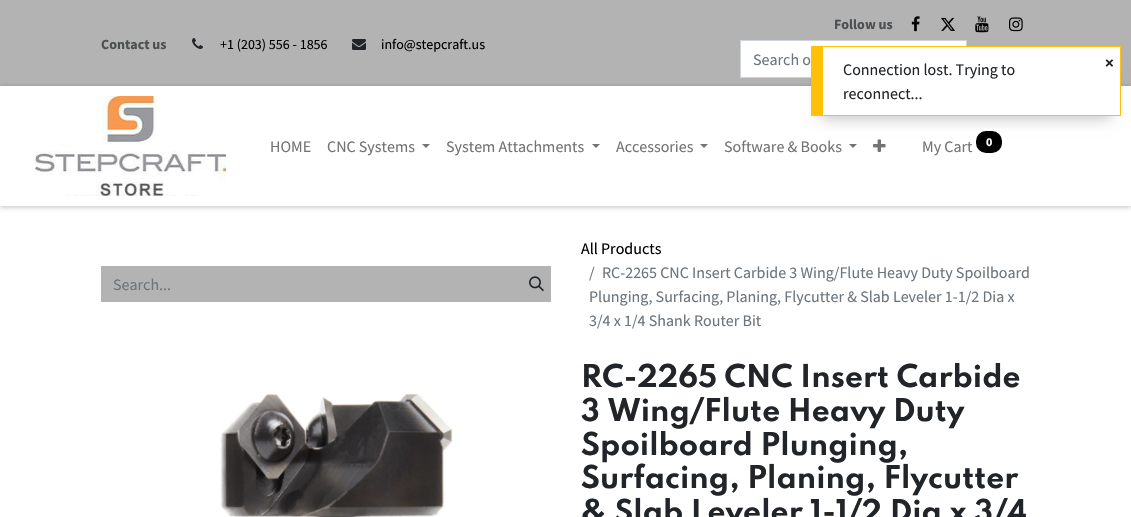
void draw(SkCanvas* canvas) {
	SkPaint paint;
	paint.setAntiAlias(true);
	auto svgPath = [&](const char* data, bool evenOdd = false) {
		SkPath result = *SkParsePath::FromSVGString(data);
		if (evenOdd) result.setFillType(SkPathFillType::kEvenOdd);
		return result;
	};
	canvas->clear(0xffffffff);
	paint.setColor(0xffb3b3b3);
	canvas->drawRect(SkRect::MakeXYWH(0, 0, 1131, 86), paint);
	SkFont f1(fontMgr->matchFamilyStyle("Source Sans Pro", SkFontStyle::Bold()), 14);
	f1.setSubpixel(true);
	paint.setColor(0xff4d5052);
	canvas->drawString("Contact us", 101, 49, f1, paint);
	canvas->drawImageRect(SkImages::DeferredFromEncodedData(SkData::MakeFromFileName("img1.png")), SkRect::MakeXYWH(192, 38, 11, 11), SkSamplingOptions());
	SkFont f2(fontMgr->matchFamilyStyle("Source Sans Pro", SkFontStyle::Normal()), 14);
	f2.setSubpixel(true);
	paint.setColor(0xff000000);
	canvas->drawString("+1 (203) 556 - 1856", 220, 49, f2, paint);
	canvas->drawImageRect(SkImages::DeferredFromEncodedData(SkData::MakeFromFileName("img2.png")), SkRect::MakeXYWH(352, 39, 14, 11), SkSamplingOptions());
	canvas->drawString("info@stepcraft.us", 381, 49, f2, paint);
	paint.setColor(0xff4d5052);
	canvas->drawString("Follow us", 834, 29, f1, paint);
	canvas->drawImageRect(SkImages::DeferredFromEncodedData(SkData::MakeFromFileName("img3.png")), SkRect::MakeXYWH(911, 16, 9, 16), SkSamplingOptions());
	canvas->drawImageRect(SkImages::DeferredFromEncodedData(SkData::MakeFromFileName("img4.png")), SkRect::MakeXYWH(941, 17, 14, 14), SkSamplingOptions());
	canvas->drawImageRect(SkImages::DeferredFromEncodedData(SkData::MakeFromFileName("img5.png")), SkRect::MakeXYWH(975, 16, 14, 17), SkSamplingOptions());
	canvas->drawImageRect(SkImages::DeferredFromEncodedData(SkData::MakeFromFileName("img6.png")), SkRect::MakeXYWH(1009, 17, 14, 15), SkSamplingOptions());
	paint.setColor(0xffffffff);
	canvas->drawRect(SkRect::MakeXYWH(740.5, 40.5, 226, 37), paint);
	paint.setStroke(true);
	paint.setStrokeWidth(1);
	paint.setColor(0xffced4da);
	canvas->drawRect(SkRect::MakeXYWH(740.5, 40.5, 226, 37), paint);
	SkFont f3(fontMgr->matchFamilyStyle("Source Sans Pro", SkFontStyle::Normal()), 16);
	f3.setSubpixel(true);
	paint.setStroke(false);
	paint.setColor(0xff6c757d);
	canvas->drawString("Search o", 753, 65, f3, paint);
	canvas->save();
	canvas->clipPath(svgPath("M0 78H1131V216H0ZM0 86H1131V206H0Z", true), true);
	paint.setColor(0x40000000);
	paint.setMaskFilter(SkMaskFilter::MakeBlur(kNormal_SkBlurStyle, 2.5));
	canvas->drawRect(SkRect::MakeXYWH(0, 87, 1131, 120), paint);
	paint.setMaskFilter(nullptr);
	canvas->restore();
	canvas->drawImageRect(SkImages::DeferredFromEncodedData(SkData::MakeFromFileName("img7.png")), SkRect::MakeXYWH(35, 96, 191, 100), SkSamplingOptions());
	paint.setColor(0xff737373);
	canvas->drawString("HOME", 270, 152, f3, paint);
	canvas->drawString("CNC Systems", 327, 152, f3, paint);
	canvas->drawPath(svgPath("M422 144H430L426 148Z"), paint);
	canvas->drawString("System Attachments", 446, 152, f3, paint);
	canvas->drawPath(svgPath("M592 144H600L596 148Z"), paint);
	canvas->drawString("Accessories", 616, 152, f3, paint);
	canvas->drawPath(svgPath("M700 144H708L704 148Z"), paint);
	canvas->drawString("Software & Books", 724, 152, f3, paint);
	canvas->drawPath(svgPath("M849 144H857L853 148Z"), paint);
	canvas->drawImageRect(SkImages::DeferredFromEncodedData(SkData::MakeFromFileName("img8.png")), SkRect::MakeXYWH(873, 139, 13, 13), SkSamplingOptions());
	canvas->drawString("My Cart", 922, 152, f3, paint);
	paint.setColor(0xff000000);
	canvas->drawRoundRect(SkRect::MakeXYWH(976, 131, 26, 22), 10, 10, paint);
	SkFont f4(fontMgr->matchFamilyStyle("Source Sans Pro", SkFontStyle::Bold()), 12);
	f4.setSubpixel(true);
	paint.setColor(0xffffffff);
	canvas->drawString("0", 986, 146, f4, paint);
	paint.setColor(0xffb3b3b3);
	canvas->drawRect(SkRect::MakeXYWH(101, 266, 450, 36), paint);
	paint.setColor(0xff6c757d);
	canvas->drawString("Search...", 113, 290, f3, paint);
	canvas->drawImageRect(SkImages::DeferredFromEncodedData(SkData::MakeFromFileName("img9.png")), SkRect::MakeXYWH(529, 276, 15, 16), SkSamplingOptions());
	paint.setColor(0xff000000);
	canvas->drawString("All Products", 581, 254, f3, paint);
	paint.setColor(0xff6c757d);
	canvas->drawString("/", 589, 278, f3, paint);
	canvas->drawString("RC-2265 CNC Insert Carbide 3 Wing/Flute Heavy Duty Spoilboard", 602, 278, f3, paint);
	canvas->drawString("Plunging, Surfacing, Planing, Flycutter & Slab Leveler 1-1/2 Dia x", 589, 302, f3, paint);
	canvas->drawString("3/4 x 1/4 Shank Router Bit", 589, 326, f3, paint);
	canvas->drawImageRect(SkImages::DeferredFromEncodedData(SkData::MakeFromFileName("img10.png")), SkRect::MakeXYWH(220, 393, 233, 124), SkSamplingOptions());
	SkFont f5(fontMgr->matchFamilyStyle("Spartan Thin", SkFontStyle::Bold()), 28);
	f5.setSubpixel(true);
	paint.setColor(0xff212529);
	canvas->drawString("RC-2265 CNC Insert Carbide", 581, 387, f5, paint);
	canvas->drawString("3 Wing/Flute Heavy Duty", 581, 421, f5, paint);
	canvas->drawString("Spoilboard Plunging,", 581, 455, f5, paint);
	canvas->drawString("Surfacing, Planing, Flycutter", 581, 488, f5, paint);
	canvas->drawString("& Slab Leveler 1-1/2 Dia x 3/4", 581, 522, f5, paint);
	paint.setColor(0x40000000);
	paint.setMaskFilter(SkMaskFilter::MakeBlur(kNormal_SkBlurStyle, 7));
	canvas->drawRect(SkRect::MakeXYWH(821, 68, 290, 50), paint);
	paint.setMaskFilter(nullptr);
	paint.setColor(0xffffffff);
	canvas->drawRect(SkRect::MakeXYWH(823, 47, 297, 68), paint);
	paint.setColor(0xffffc107);
	canvas->drawRect(SkRect::MakeXYWH(823, 46, 298, 1), paint);
	canvas->drawRect(SkRect::MakeXYWH(1120, 46, 1, 70), paint);
	canvas->drawRect(SkRect::MakeXYWH(823, 115, 298, 1), paint);
	canvas->drawRect(SkRect::MakeXYWH(811, 46, 12, 70), paint);
	paint.setColor(0xff212529);
	canvas->drawString("Connection lost. Trying to", 843, 75, f3, paint);
	canvas->drawString("reconnect...", 843, 99, f3, paint);
	SkFont f6(fontMgr->matchFamilyStyle("Liberation Sans", SkFontStyle::Bold()), 15);
	f6.setSubpixel(true);
	canvas->drawString("×", 1105, 68, f6, paint);
}
